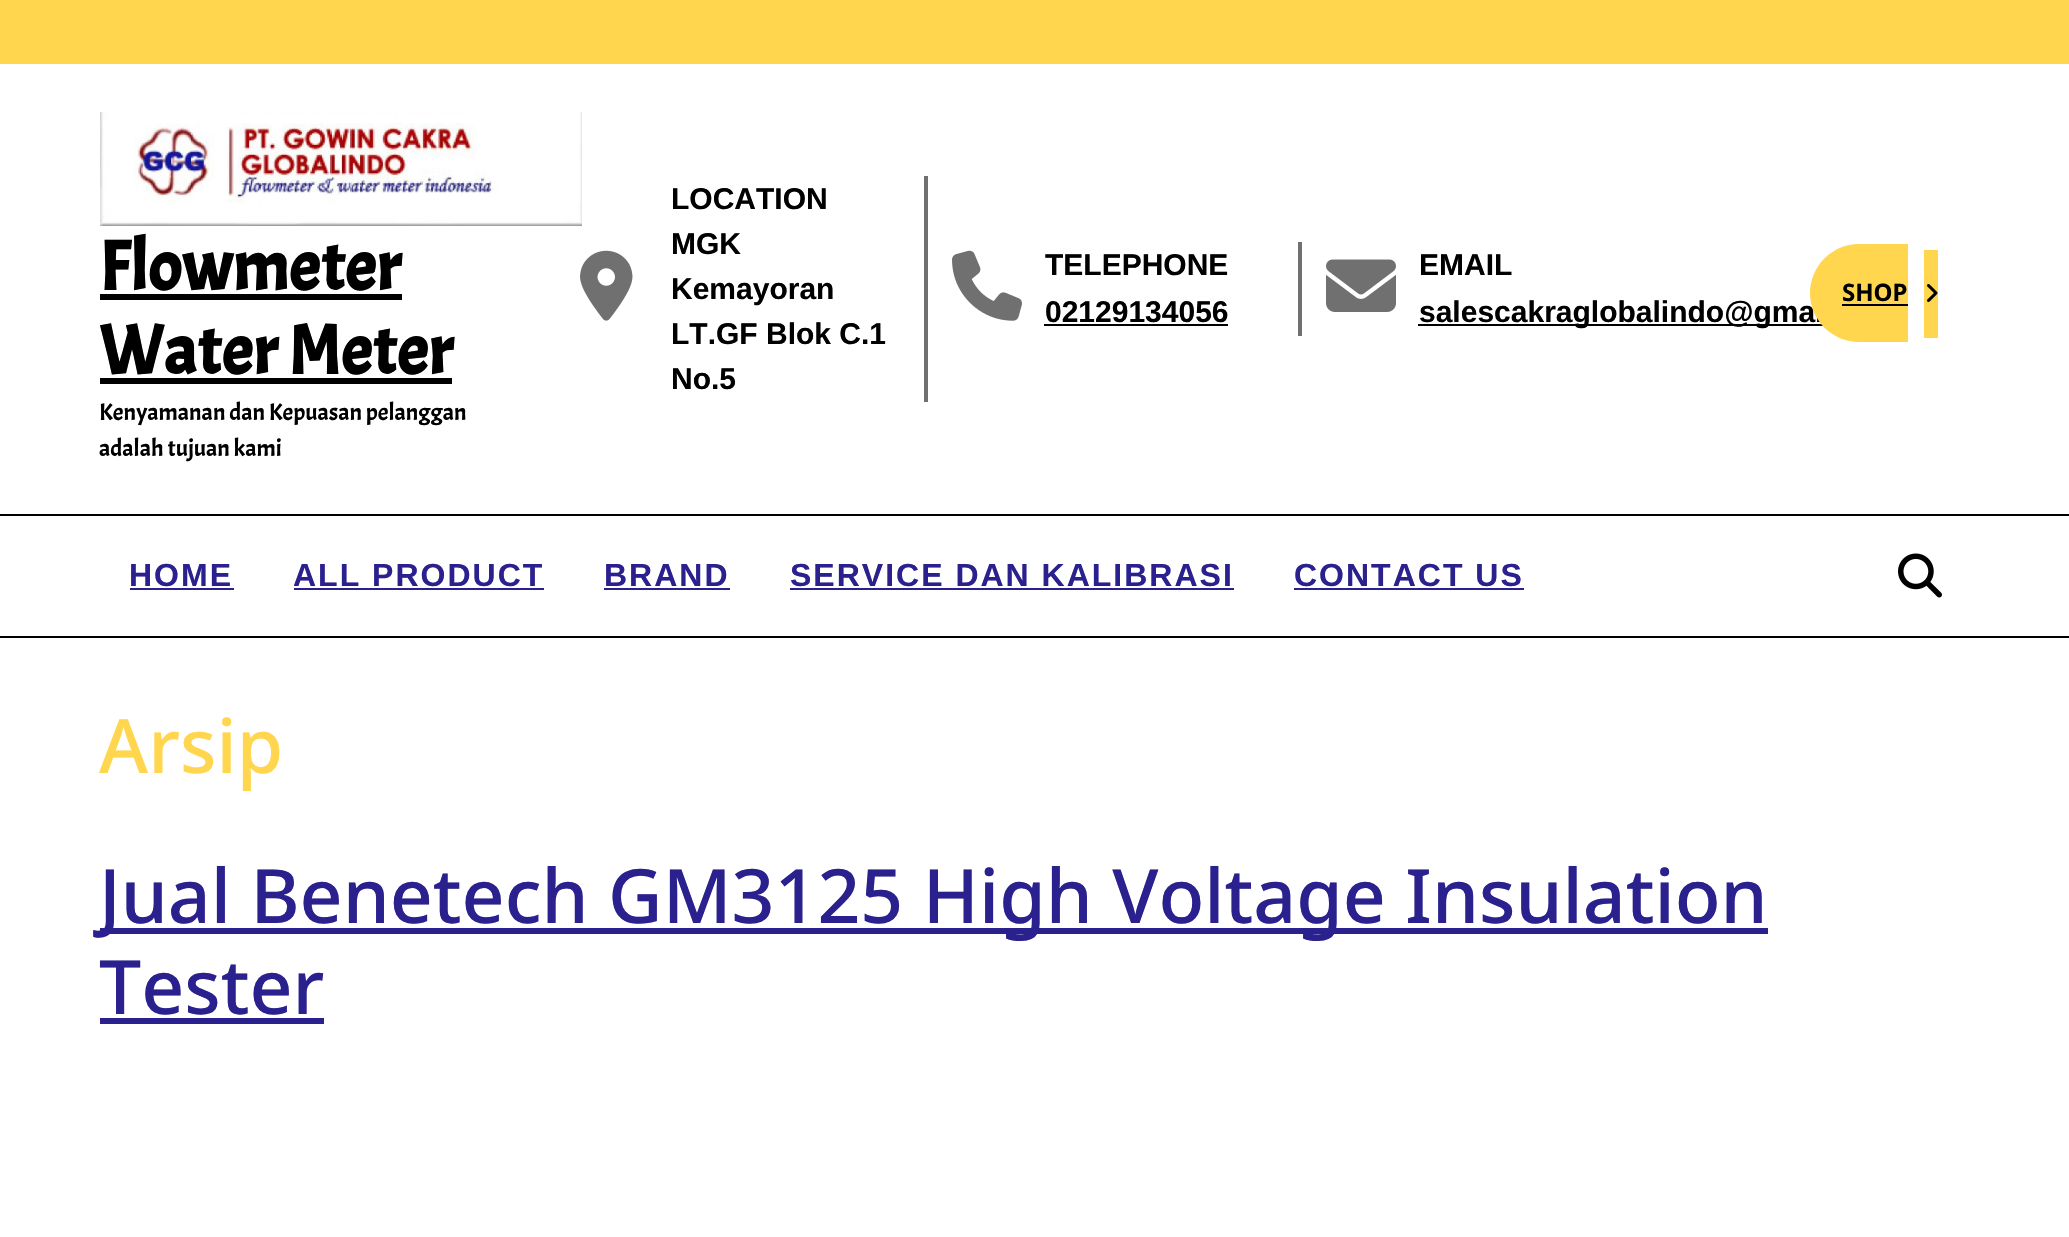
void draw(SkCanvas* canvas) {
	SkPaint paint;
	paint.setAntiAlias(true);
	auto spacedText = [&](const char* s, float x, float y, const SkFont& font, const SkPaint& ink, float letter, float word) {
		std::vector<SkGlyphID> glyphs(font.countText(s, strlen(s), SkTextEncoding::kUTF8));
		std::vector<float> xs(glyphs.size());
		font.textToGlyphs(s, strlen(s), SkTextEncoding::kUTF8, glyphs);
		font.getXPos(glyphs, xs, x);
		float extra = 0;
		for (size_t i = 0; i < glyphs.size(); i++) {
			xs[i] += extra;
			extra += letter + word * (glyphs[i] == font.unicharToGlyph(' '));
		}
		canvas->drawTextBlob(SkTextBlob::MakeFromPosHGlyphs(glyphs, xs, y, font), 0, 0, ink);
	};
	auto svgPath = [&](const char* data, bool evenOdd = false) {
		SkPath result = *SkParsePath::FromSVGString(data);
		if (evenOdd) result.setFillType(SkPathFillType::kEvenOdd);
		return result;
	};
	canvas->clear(0xffffffff);
	paint.setColor(0xffffd64e);
	canvas->drawRect(SkRect::MakeXYWH(0, 0, 2069, 64), paint);
	canvas->drawImageRect(SkImages::DeferredFromEncodedData(SkData::MakeFromFileName("img1.png")), SkRect::MakeXYWH(100, 112, 482, 114), SkSamplingOptions());
	SkFont f1(fontMgr->matchFamilyStyle("Acme", SkFontStyle::Bold()), 70);
	f1.setSubpixel(true);
	paint.setColor(0xff000000);
	canvas->drawString("Flowmeter", 99, 290, f1, paint);
	canvas->drawRect(SkRect::MakeXYWH(100, 294, 302, 6), paint);
	canvas->drawString("Water Meter", 99, 374, f1, paint);
	canvas->drawRect(SkRect::MakeXYWH(100, 378, 352, 6), paint);
	SkFont f2(fontMgr->matchFamilyStyle("Acme", SkFontStyle::Normal()), 24);
	f2.setSubpixel(true);
	canvas->drawString("Kenyamanan dan Kepuasan pelanggan", 99, 420, f2, paint);
	canvas->drawString("adalah tujuan kami", 99, 456, f2, paint);
	paint.setColor(0xff707070);
	canvas->drawRect(SkRect::MakeXYWH(924, 176, 4, 226), paint);
	canvas->drawImageRect(SkImages::DeferredFromEncodedData(SkData::MakeFromFileName("img2.png")), SkRect::MakeXYWH(580, 250, 53, 71), SkSamplingOptions());
	SkFont f3(fontMgr->matchFamilyStyle("Liberation Sans", SkFontStyle::Bold()), 30);
	f3.setSubpixel(true);
	paint.setColor(0xff000000);
	canvas->drawString("LOCATION", 671, 209, f3, paint);
	canvas->drawString("MGK", 671, 254, f3, paint);
	canvas->drawString("Kemayoran", 671, 299, f3, paint);
	canvas->drawString("LT.GF Blok C.1", 671, 344, f3, paint);
	canvas->drawString("No.5", 671, 389, f3, paint);
	paint.setColor(0xff707070);
	canvas->drawRect(SkRect::MakeXYWH(1298, 242, 4, 94), paint);
	canvas->drawImageRect(SkImages::DeferredFromEncodedData(SkData::MakeFromFileName("img3.png")), SkRect::MakeXYWH(952, 250, 70, 71), SkSamplingOptions());
	paint.setColor(0xff000000);
	canvas->drawString("TELEPHONE", 1045, 275, f3, paint);
	canvas->drawString("02129134056", 1045, 322, f3, paint);
	canvas->drawRect(SkRect::MakeXYWH(1044, 324, 184, 2), paint);
	canvas->drawImageRect(SkImages::DeferredFromEncodedData(SkData::MakeFromFileName("img4.png")), SkRect::MakeXYWH(1326, 259, 70, 53), SkSamplingOptions());
	canvas->drawString("EMAIL", 1419, 275, f3, paint);
	canvas->drawRect(SkRect::MakeXYWH(1418, 324, 405, 2), paint);
	canvas->drawString("salescakraglobalindo@gmai", 1419, 322, f3, paint);
	paint.setColor(0xffffd64e);
	canvas->drawPath(svgPath("M1859 244H1908V342H1859C1832 342 1810 320 1810 293C1810 266 1832 244 1859 244Z"), paint);
	canvas->drawRect(SkRect::MakeXYWH(1924, 250, 14, 88), paint);
	SkFont f4(fontMgr->matchFamilyStyle("Noto Sans", SkFontStyle::Bold()), 24);
	f4.setSubpixel(true);
	paint.setColor(0xff000000);
	canvas->drawString("SHOP", 1842, 301, f4, paint);
	canvas->drawRect(SkRect::MakeXYWH(1842, 304, 66, 2), paint);
	canvas->drawImageRect(SkImages::DeferredFromEncodedData(SkData::MakeFromFileName("img5.png")), SkRect::MakeXYWH(1927, 284, 11, 18), SkSamplingOptions());
	canvas->drawRect(SkRect::MakeXYWH(0, 514, 2069, 2), paint);
	canvas->drawRect(SkRect::MakeXYWH(0, 636, 2069, 2), paint);
	SkFont f5(fontMgr->matchFamilyStyle("Liberation Sans", SkFontStyle::Bold()), 32);
	f5.setSubpixel(true);
	paint.setColor(0xff2a208e);
	spacedText("HOME", 129, 586, f5, paint, 2, 0);
	canvas->drawRect(SkRect::MakeXYWH(130, 588, 104, 2), paint);
	spacedText("ALL PRODUCT", 293, 586, f5, paint, 2, 0);
	canvas->drawRect(SkRect::MakeXYWH(294, 588, 250, 2), paint);
	spacedText("BRAND", 604, 586, f5, paint, 2, 0);
	canvas->drawRect(SkRect::MakeXYWH(604, 588, 126, 2), paint);
	spacedText("SERVICE DAN KALIBRASI", 790, 586, f5, paint, 2, 0);
	canvas->drawRect(SkRect::MakeXYWH(790, 588, 444, 2), paint);
	spacedText("CONTACT US", 1294, 586, f5, paint, 2, 0);
	canvas->drawRect(SkRect::MakeXYWH(1294, 588, 230, 2), paint);
	canvas->drawImageRect(SkImages::DeferredFromEncodedData(SkData::MakeFromFileName("img6.png")), SkRect::MakeXYWH(1898, 553, 44, 45), SkSamplingOptions());
	SkFont f6(fontMgr->matchFamilyStyle("Noto Sans", SkFontStyle(500, SkFontStyle::kNormal_Width, SkFontStyle::kUpright_Slant)), 75.05);
	f6.setSubpixel(true);
	paint.setColor(0xffffd64e);
	canvas->drawString("Arsip", 99, 773, f6, paint);
	paint.setColor(0xff2a208e);
	canvas->drawRect(SkRect::MakeXYWH(100, 928, 1668, 6), paint);
	canvas->drawString("Jual Benetech GM3125 High Voltage Insulation", 99, 923, f6, paint);
	canvas->drawString("Tester", 99, 1014, f6, paint);
	canvas->drawRect(SkRect::MakeXYWH(100, 1018, 224, 6), paint);
}
